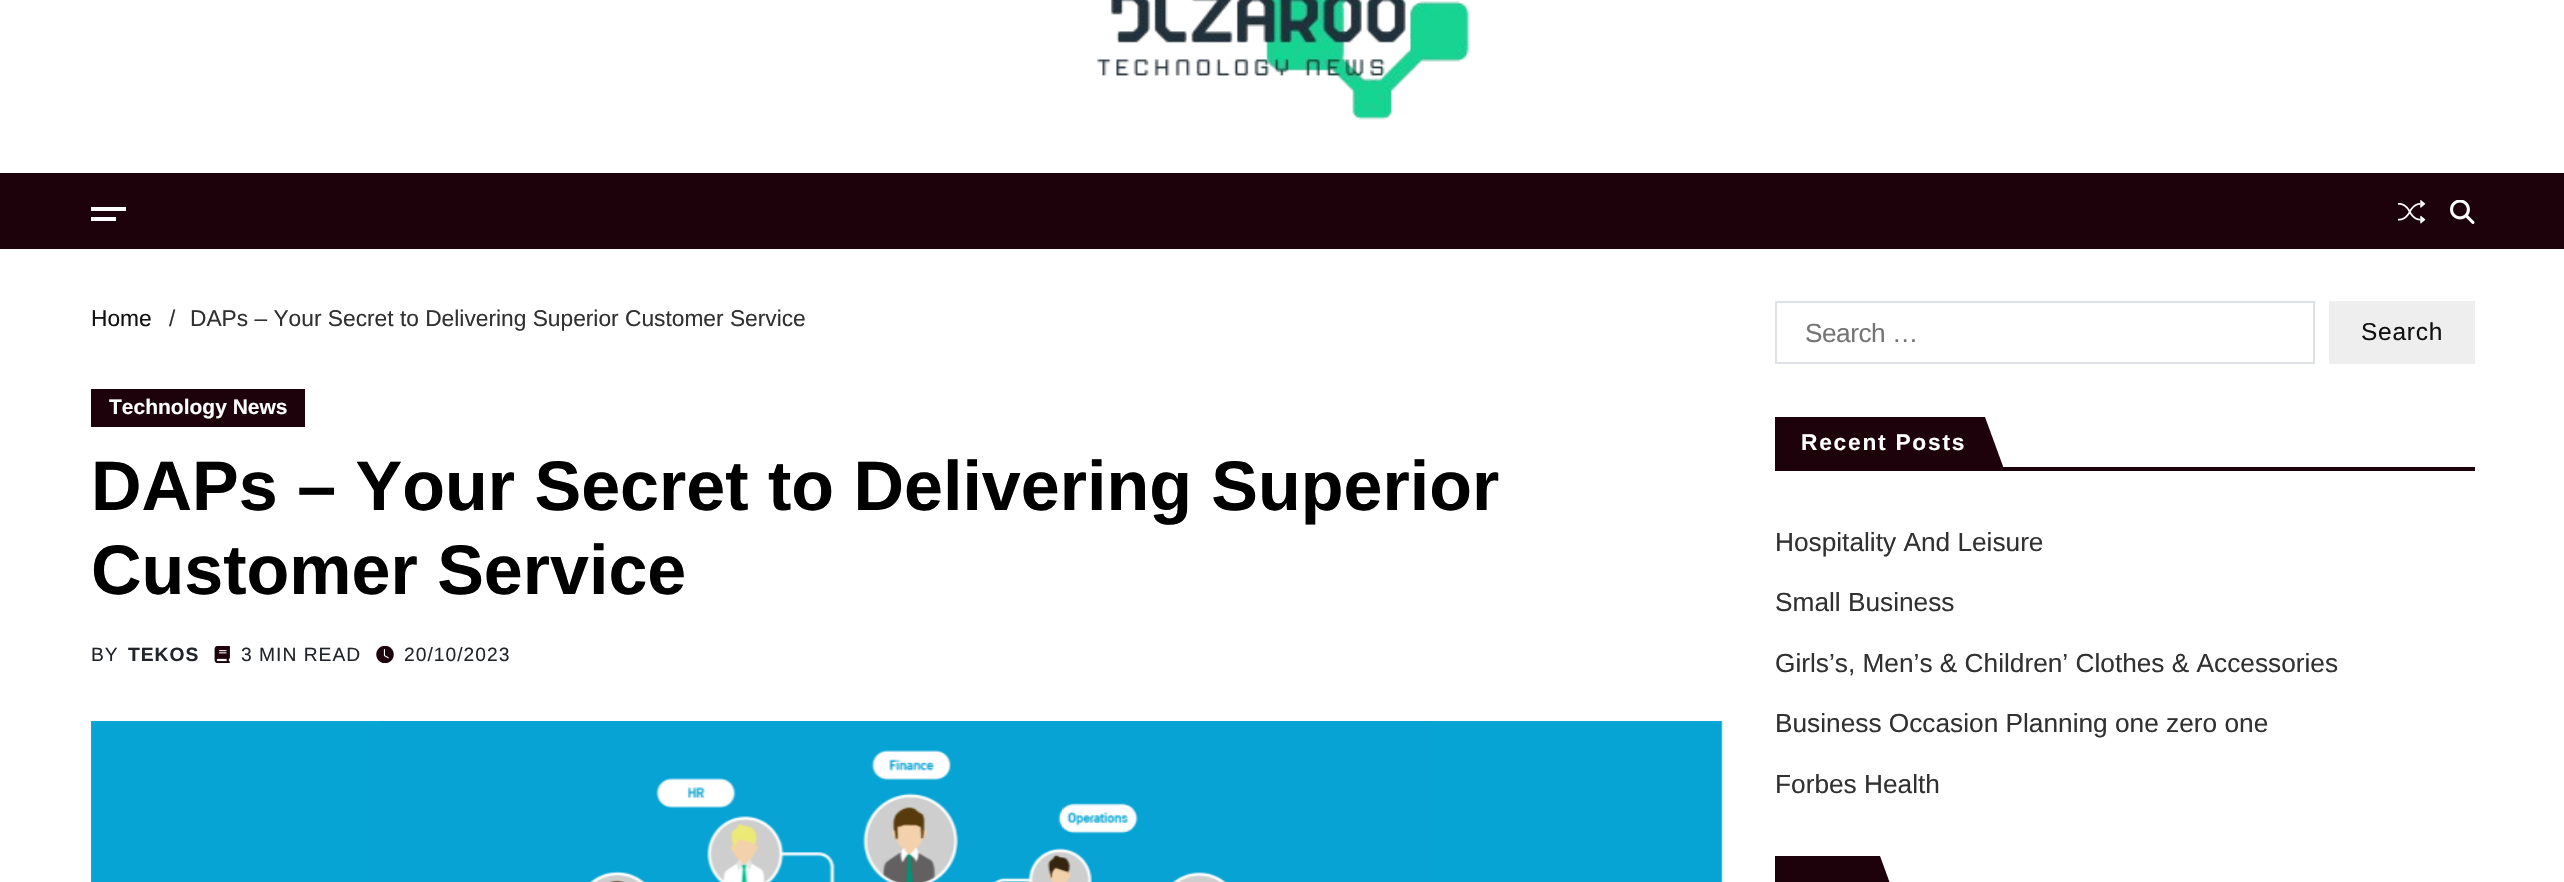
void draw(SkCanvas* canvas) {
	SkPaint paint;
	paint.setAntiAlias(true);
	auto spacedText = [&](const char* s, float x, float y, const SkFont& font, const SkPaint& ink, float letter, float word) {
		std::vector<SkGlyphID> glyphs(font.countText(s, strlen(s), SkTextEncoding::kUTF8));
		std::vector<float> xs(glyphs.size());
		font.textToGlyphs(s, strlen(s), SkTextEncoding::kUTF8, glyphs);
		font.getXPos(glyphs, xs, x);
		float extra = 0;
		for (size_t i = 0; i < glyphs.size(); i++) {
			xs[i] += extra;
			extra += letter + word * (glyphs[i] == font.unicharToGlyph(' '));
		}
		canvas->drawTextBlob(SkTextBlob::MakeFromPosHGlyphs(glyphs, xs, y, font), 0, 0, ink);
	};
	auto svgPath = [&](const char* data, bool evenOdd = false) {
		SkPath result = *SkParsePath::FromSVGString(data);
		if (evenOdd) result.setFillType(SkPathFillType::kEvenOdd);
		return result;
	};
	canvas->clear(0xffffffff);
	canvas->drawImageRect(SkImages::DeferredFromEncodedData(SkData::MakeFromFileName("img1.png")), SkRect::MakeXYWH(1096, 0, 373, 120), SkSamplingOptions());
	paint.setColor(0xff1d020b);
	canvas->drawRect(SkRect::MakeXYWH(0, 173, 2564, 76), paint);
	paint.setColor(0xffffffff);
	canvas->drawRect(SkRect::MakeXYWH(91, 207, 35, 4), paint);
	canvas->drawRect(SkRect::MakeXYWH(91, 217, 25, 4), paint);
	canvas->drawImageRect(SkImages::DeferredFromEncodedData(SkData::MakeFromFileName("img2.png")), SkRect::MakeXYWH(2398, 200, 28, 24), SkSamplingOptions());
	canvas->drawImageRect(SkImages::DeferredFromEncodedData(SkData::MakeFromFileName("img3.png")), SkRect::MakeXYWH(2450, 200, 25, 24), SkSamplingOptions());
	SkFont f1(fontMgr->matchFamilyStyle("Liberation Sans", SkFontStyle::Normal()), 22.75);
	f1.setSubpixel(true);
	paint.setColor(0xff111111);
	canvas->drawString("Home", 91, 326, f1, paint);
	paint.setColor(0xff313131);
	canvas->drawString("/", 169, 326, f1, paint);
	canvas->drawString("DAPs – Your Secret to Delivering Superior Customer Service", 190, 326, f1, paint);
	paint.setColor(0xff1d020b);
	canvas->drawRect(SkRect::MakeXYWH(91, 389, 214, 38), paint);
	SkFont f2(fontMgr->matchFamilyStyle("Liberation Sans", SkFontStyle::Bold()), 21);
	f2.setSubpixel(true);
	paint.setColor(0xffffffff);
	canvas->drawString("Technology News", 109, 414, f2, paint);
	SkFont f3(fontMgr->matchFamilyStyle("Liberation Sans", SkFontStyle::Bold()), 70);
	f3.setSubpixel(true);
	paint.setColor(0xff000000);
	canvas->drawString("DAPs – Your Secret to Delivering Superior", 91, 510, f3, paint);
	canvas->drawString("Customer Service", 91, 594, f3, paint);
	SkFont f4(fontMgr->matchFamilyStyle("Liberation Sans", SkFontStyle::Normal()), 19.25);
	f4.setSubpixel(true);
	paint.setColor(0xff212529);
	spacedText("BY", 91, 661, f4, paint, 1, 0);
	SkFont f5(fontMgr->matchFamilyStyle("Liberation Sans", SkFontStyle::Bold()), 19.25);
	f5.setSubpixel(true);
	spacedText("TEKOS", 128, 661, f5, paint, 1, 0);
	canvas->drawImageRect(SkImages::DeferredFromEncodedData(SkData::MakeFromFileName("img4.png")), SkRect::MakeXYWH(214, 646, 16, 17), SkSamplingOptions());
	spacedText("3 MIN READ", 241, 661, f4, paint, 1, 0);
	canvas->drawImageRect(SkImages::DeferredFromEncodedData(SkData::MakeFromFileName("img5.png")), SkRect::MakeXYWH(376, 646, 18, 17), SkSamplingOptions());
	spacedText("20/10/2023", 404, 661, f4, paint, 1, 0);
	canvas->drawImageRect(SkImages::DeferredFromEncodedData(SkData::MakeFromFileName("img6.png")), SkRect::MakeXYWH(91, 721, 1633, 161), SkSamplingOptions());
	paint.setStroke(true);
	paint.setStrokeWidth(2);
	paint.setColor(0xffdee2e6);
	canvas->drawRect(SkRect::MakeXYWH(1776, 302, 538, 61), paint);
	SkFont f6(fontMgr->matchFamilyStyle("Liberation Sans", SkFontStyle::Normal()), 26.25);
	f6.setSubpixel(true);
	paint.setStroke(false);
	paint.setColor(0xff757575);
	spacedText("Search …", 1805, 342, f6, paint, -0.5, 0);
	paint.setColor(0xffeeeeee);
	canvas->drawRect(SkRect::MakeXYWH(2329, 301, 146, 63), paint);
	SkFont f7(fontMgr->matchFamilyStyle("Liberation Sans", SkFontStyle::Normal()), 24.5);
	f7.setSubpixel(true);
	paint.setColor(0xff111111);
	spacedText("Search", 2361, 340, f7, paint, 0.75, 0);
	paint.setColor(0xff1d020b);
	canvas->drawRect(SkRect::MakeXYWH(1775, 467, 700, 4), paint);
	canvas->drawRect(SkRect::MakeXYWH(1775, 417, 173, 50), paint);
	canvas->drawPath(svgPath("M1929 417H1985L2004 469H1948Z"), paint);
	SkFont f8(fontMgr->matchFamilyStyle("Liberation Sans", SkFontStyle::Bold()), 22.75);
	f8.setSubpixel(true);
	paint.setColor(0xffffffff);
	spacedText("Recent Posts", 1801, 450, f8, paint, 1.75, 0);
	paint.setColor(0xff313131);
	canvas->drawString("Hospitality And Leisure", 1775, 551, f6, paint);
	canvas->drawString("Small Business", 1775, 611, f6, paint);
	canvas->drawString("Girls’s, Men’s & Children’ Clothes & Accessories", 1775, 672, f6, paint);
	canvas->drawString("Business Occasion Planning one zero one", 1775, 732, f6, paint);
	canvas->drawString("Forbes Health", 1775, 793, f6, paint);
	paint.setColor(0xff1d020b);
	canvas->drawRect(SkRect::MakeXYWH(1775, 856, 59, 26), paint);
	canvas->drawPath(svgPath("M1824 856H1880L1899 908H1843Z"), paint);
}
